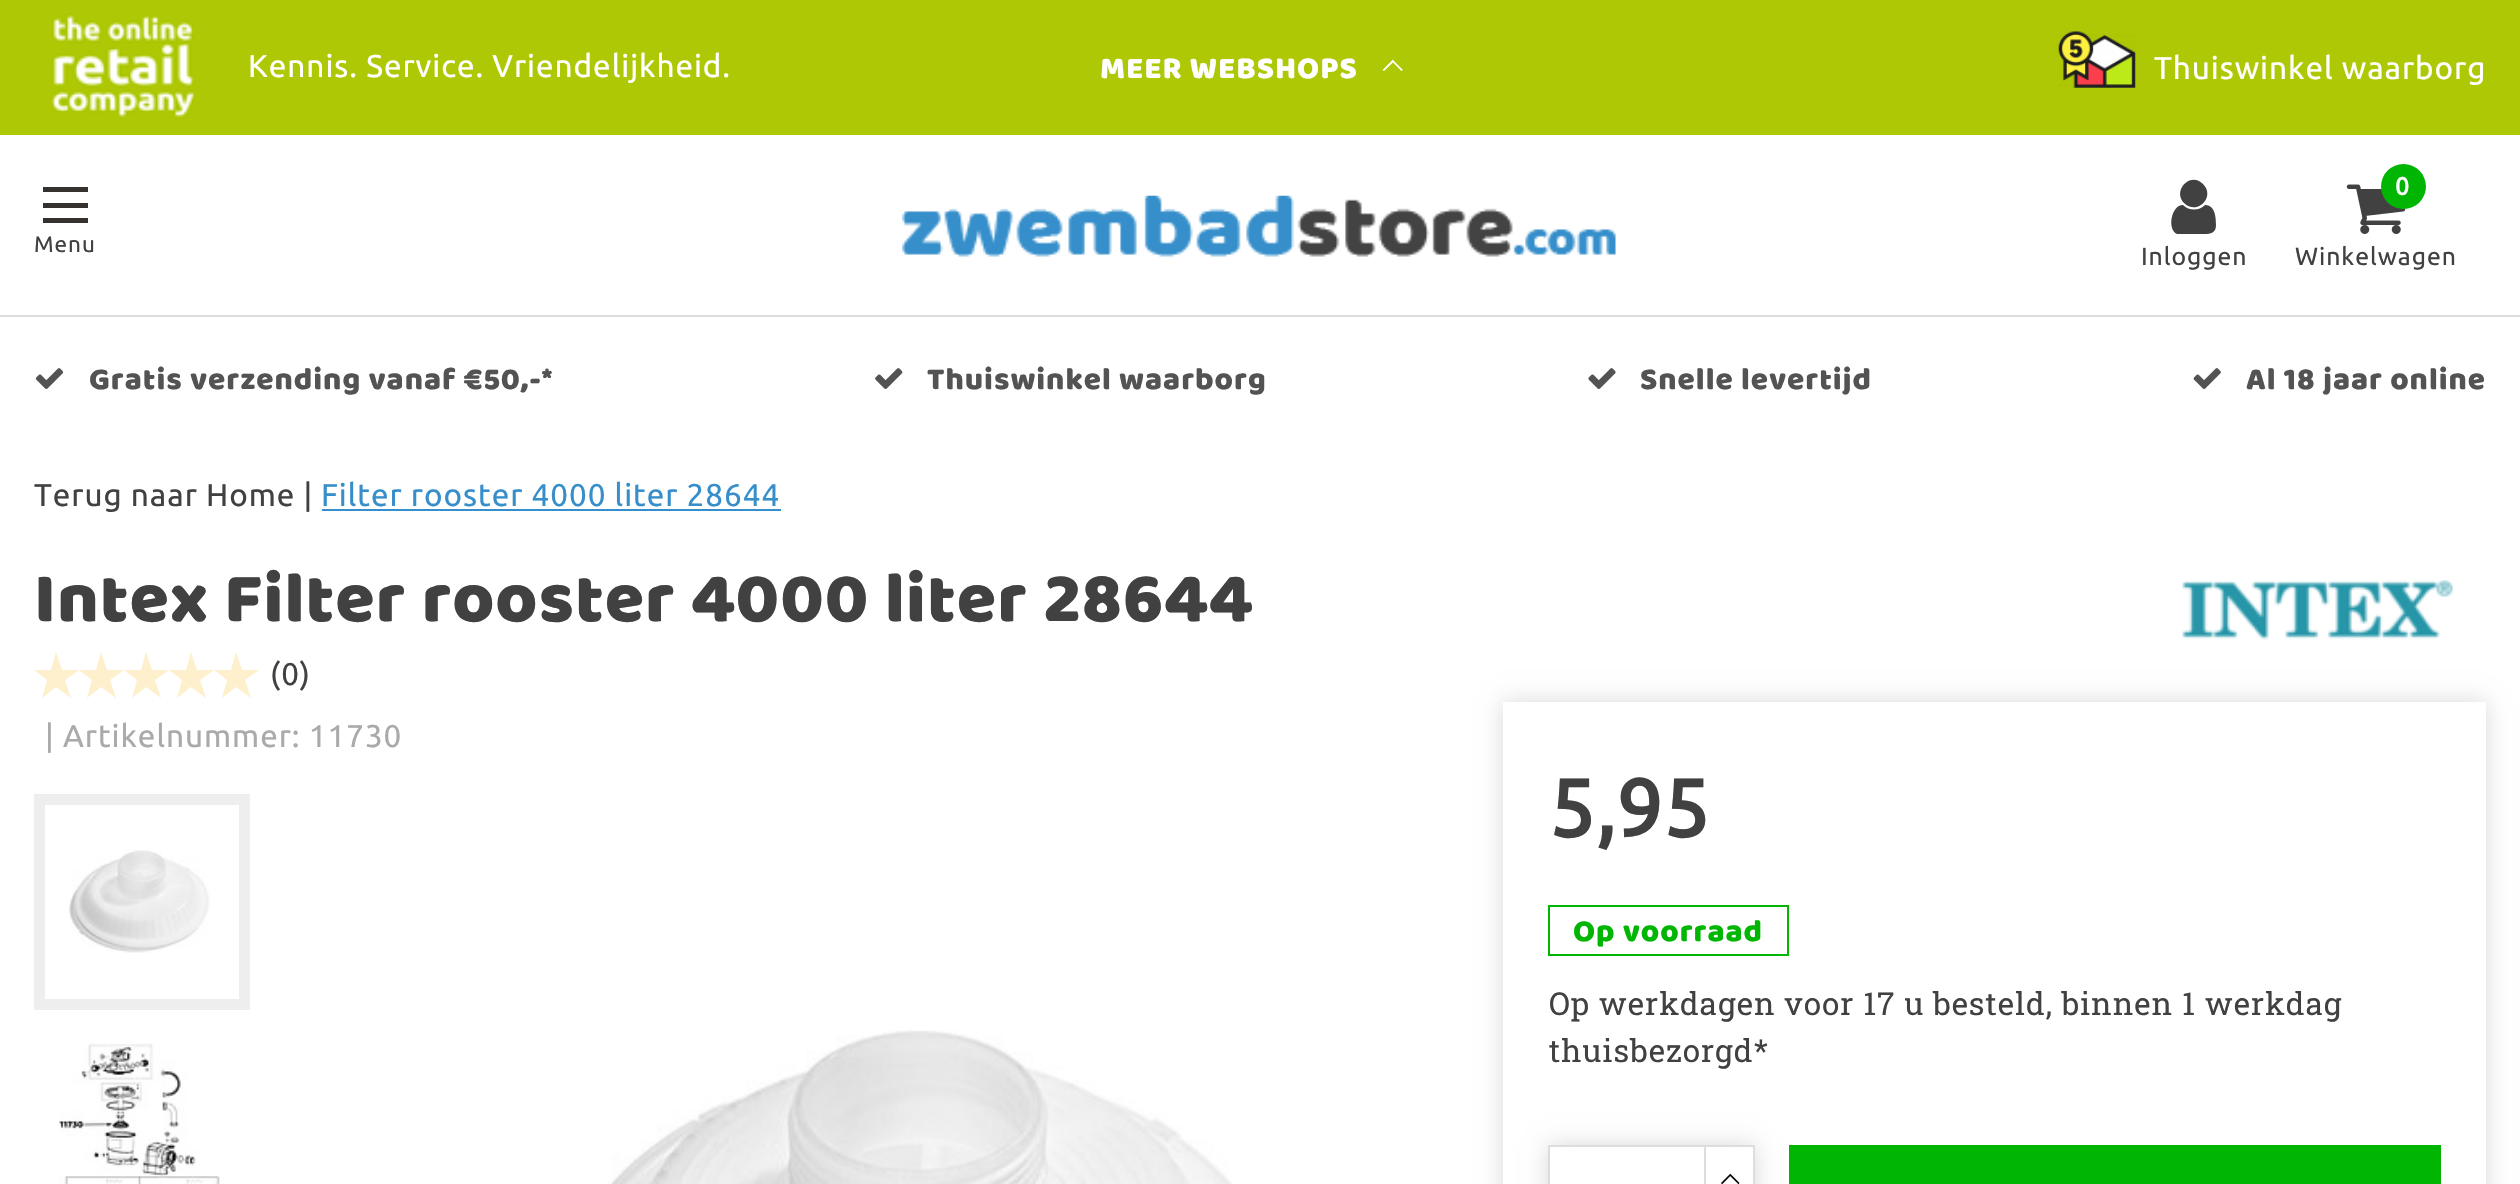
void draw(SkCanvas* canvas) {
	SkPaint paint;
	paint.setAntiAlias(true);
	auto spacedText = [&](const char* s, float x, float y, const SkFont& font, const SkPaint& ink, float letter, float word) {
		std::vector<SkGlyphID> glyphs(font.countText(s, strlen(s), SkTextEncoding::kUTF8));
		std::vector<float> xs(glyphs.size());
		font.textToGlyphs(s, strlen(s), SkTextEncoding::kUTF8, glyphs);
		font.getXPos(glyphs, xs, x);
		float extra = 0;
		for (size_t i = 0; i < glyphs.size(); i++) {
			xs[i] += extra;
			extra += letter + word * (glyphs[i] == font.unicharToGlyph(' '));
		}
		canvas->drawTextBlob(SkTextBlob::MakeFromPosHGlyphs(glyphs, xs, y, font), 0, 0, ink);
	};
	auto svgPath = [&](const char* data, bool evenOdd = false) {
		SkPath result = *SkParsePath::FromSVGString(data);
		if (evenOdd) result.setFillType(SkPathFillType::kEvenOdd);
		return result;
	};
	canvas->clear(0xffffffff);
	paint.setColor(0xffaec805);
	canvas->drawRect(SkRect::MakeXYWH(0, 0, 2520, 135), paint);
	canvas->drawImageRect(SkImages::DeferredFromEncodedData(SkData::MakeFromFileName("img1.png")), SkRect::MakeXYWH(50, 14, 145, 105), SkSamplingOptions());
	SkFont f1(fontMgr->matchFamilyStyle("Ubuntu", SkFontStyle::Normal()), 31.5);
	f1.setSubpixel(true);
	paint.setColor(0xffffffff);
	spacedText("Kennis. Service. Vriendelijkheid.", 248, 77, f1, paint, 0.95, 0);
	SkFont f2(fontMgr->matchFamilyStyle("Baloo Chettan", SkFontStyle::Normal()), 31.5);
	f2.setSubpixel(true);
	spacedText("MEER WEBSHOPS", 1100, 78, f2, paint, 0.95, 0);
	canvas->drawPath(svgPath("M1394 61L1393 59.5L1382.5 70L1384 71L1393 62.5L1401.5 71L1403 70Z"), paint);
	canvas->drawImageRect(SkImages::DeferredFromEncodedData(SkData::MakeFromFileName("img2.png")), SkRect::MakeXYWH(2058, 31, 78, 57), SkSamplingOptions());
	spacedText("Thuiswinkel waarborg", 2154, 79, f1, paint, 0.95, 0);
	paint.setColor(0xffdddddd);
	canvas->drawRect(SkRect::MakeXYWH(0, 315, 2520, 2), paint);
	paint.setColor(0xff34312f);
	canvas->drawRect(SkRect::MakeXYWH(43, 187, 45, 5), paint);
	canvas->drawRect(SkRect::MakeXYWH(43, 203, 45, 5), paint);
	canvas->drawRect(SkRect::MakeXYWH(43, 218, 45, 5), paint);
	SkFont f3(fontMgr->matchFamilyStyle("Ubuntu", SkFontStyle::Normal()), 22.5);
	f3.setSubpixel(true);
	paint.setColor(0xff414141);
	spacedText("Menu", 34, 252, f3, paint, 0.95, 0);
	canvas->drawImageRect(SkImages::DeferredFromEncodedData(SkData::MakeFromFileName("img3.png")), SkRect::MakeXYWH(902, 195, 714, 62), SkSamplingOptions());
	paint.setColor(0xff414142);
	canvas->drawPath(svgPath("M2216 225C2216 233 2211 234 2204 234H2177C2167 230 2171 205 2183 205C2189 211 2199 211 2205 205C2215 205 2216 217 2216 225ZM2203 184C2216 197 2197 216 2184 203C2172 190 2191 171 2203 184Z"), paint);
	SkFont f4(fontMgr->matchFamilyStyle("Ubuntu", SkFontStyle::Normal()), 24.75);
	f4.setSubpixel(true);
	paint.setColor(0xff414141);
	spacedText("Inloggen", 2141, 265, f4, paint, 0.95, 0);
	canvas->drawImageRect(SkImages::DeferredFromEncodedData(SkData::MakeFromFileName("img4.png")), SkRect::MakeXYWH(2346, 184, 60, 50), SkSamplingOptions());
	paint.setColor(0xff00b602);
	canvas->drawCircle(2403.5, 186.5, 22.5, paint);
	SkFont f5(fontMgr->matchFamilyStyle("Ubuntu", SkFontStyle::Bold()), 24.75);
	f5.setSubpixel(true);
	paint.setColor(0xffffffff);
	spacedText("0", 2395, 195, f5, paint, 0.95, 0);
	paint.setColor(0xff414141);
	spacedText("Winkelwagen", 2295, 265, f4, paint, 0.95, 0);
	canvas->drawImageRect(SkImages::DeferredFromEncodedData(SkData::MakeFromFileName("img5.png")), SkRect::MakeXYWH(35, 368, 29, 21), SkSamplingOptions());
	paint.setColor(0xff535353);
	spacedText("Gratis verzending vanaf €50,-*", 89, 389, f2, paint, 0.95, 0);
	canvas->drawImageRect(SkImages::DeferredFromEncodedData(SkData::MakeFromFileName("img6.png")), SkRect::MakeXYWH(875, 368, 28, 21), SkSamplingOptions());
	spacedText("Thuiswinkel waarborg", 927, 389, f2, paint, 0.95, 0);
	canvas->drawImageRect(SkImages::DeferredFromEncodedData(SkData::MakeFromFileName("img7.png")), SkRect::MakeXYWH(1588, 368, 28, 21), SkSamplingOptions());
	spacedText("Snelle levertijd", 1640, 389, f2, paint, 0.95, 0);
	canvas->drawImageRect(SkImages::DeferredFromEncodedData(SkData::MakeFromFileName("img8.png")), SkRect::MakeXYWH(2193, 368, 28, 21), SkSamplingOptions());
	spacedText("Al 18 jaar online", 2246, 389, f2, paint, 0.95, 0);
	paint.setColor(0xff414141);
	spacedText("Terug naar Home |", 34, 506, f1, paint, 0.95, 0);
	paint.setColor(0xff368fcb);
	spacedText("Filter rooster 4000 liter 28644", 321, 506, f1, paint, 0.95, 0);
	canvas->drawRect(SkRect::MakeXYWH(322, 509, 459, 2), paint);
	SkFont f6(fontMgr->matchFamilyStyle("Baloo Chettan", SkFontStyle::Normal()), 72);
	f6.setSubpixel(true);
	paint.setColor(0xff414141);
	spacedText("Intex Filter rooster 4000 liter 28644", 34, 621, f6, paint, 0.95, 0);
	paint.setColor(0xfffff0cd);
	canvas->drawPath(svgPath("M71 698L65 680L79 670H62L56 652L51 670H34L47 680L42 698L56 687Z"), paint);
	canvas->drawPath(svgPath("M116 698L110 680L124 670H107L101 652L96 670H79L92 680L87 698L101 687Z"), paint);
	canvas->drawPath(svgPath("M161 698L155 680L169 670H152L146 652L141 670H124L137 680L132 698L146 687Z"), paint);
	canvas->drawPath(svgPath("M206 698L200 680L214 670H197L191 652L186 670H169L182 680L177 698L191 687Z"), paint);
	canvas->drawPath(svgPath("M251 698L245 680L259 670H242L236 652L231 670H214L227 680L222 698L236 687Z"), paint);
	paint.setColor(0xff414141);
	spacedText("(0)", 270, 685, f1, paint, 0.95, 0);
	paint.setColor(0xffaaaaaa);
	spacedText("| Artikelnummer: 11730", 45, 747, f1, paint, 0.95, 0);
	paint.setStroke(true);
	paint.setStrokeWidth(11);
	paint.setColor(0xffeeeeee);
	canvas->drawRect(SkRect::MakeXYWH(39.5, 799.5, 205, 205), paint);
	canvas->drawImageRect(SkImages::DeferredFromEncodedData(SkData::MakeFromFileName("img9.png")), SkRect::MakeXYWH(69, 850, 141, 103), SkSamplingOptions());
	canvas->drawImageRect(SkImages::DeferredFromEncodedData(SkData::MakeFromFileName("img10.png")), SkRect::MakeXYWH(59, 1043, 161, 141), SkSamplingOptions());
	canvas->drawImageRect(SkImages::DeferredFromEncodedData(SkData::MakeFromFileName("img11.png")), SkRect::MakeXYWH(608, 1030, 625, 154), SkSamplingOptions());
	canvas->drawImageRect(SkImages::DeferredFromEncodedData(SkData::MakeFromFileName("img12.png")), SkRect::MakeXYWH(2182, 580, 272, 60), SkSamplingOptions());
	canvas->save();
	canvas->clipPath(svgPath("M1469 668H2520V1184H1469ZM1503 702H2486V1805H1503Z", true), true);
	paint.setStroke(false);
	paint.setColor(0x26000000);
	paint.setMaskFilter(SkMaskFilter::MakeBlur(kNormal_SkBlurStyle, 11));
	canvas->drawRect(SkRect::MakeXYWH(1503, 702, 983, 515), paint);
	paint.setMaskFilter(nullptr);
	canvas->restore();
	SkFont f7(fontMgr->matchFamilyStyle("Ubuntu", SkFontStyle::Bold()), 81);
	f7.setSubpixel(true);
	paint.setColor(0xff414141);
	spacedText("5,95", 1549, 837, f7, paint, 0.95, 0);
	paint.setStroke(true);
	paint.setStrokeWidth(2);
	paint.setColor(0xff00b602);
	canvas->drawRect(SkRect::MakeXYWH(1549, 906, 239, 49), paint);
	paint.setStroke(false);
	spacedText("Op voorraad", 1573, 941, f2, paint, 0.95, 0);
	SkFont f8(fontMgr->matchFamilyStyle("Roboto Slab", SkFontStyle::Normal()), 31.5);
	f8.setSubpixel(true);
	paint.setColor(0xff414141);
	spacedText("Op werkdagen voor 17 u besteld, binnen 1 werkdag", 1549, 1015, f8, paint, 0.95, 0);
	spacedText("thuisbezorgd*", 1549, 1062, f8, paint, 0.95, 0);
	paint.setColor(0x26000000);
	paint.setMaskFilter(SkMaskFilter::MakeBlur(kNormal_SkBlurStyle, 11));
	canvas->drawRect(SkRect::MakeXYWH(1548, 1145, 207, 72), paint);
	paint.setMaskFilter(nullptr);
	paint.setColor(0xffffffff);
	canvas->drawRect(SkRect::MakeXYWH(1549, 1146, 156, 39), paint);
	paint.setStroke(true);
	paint.setColor(0xffdddddd);
	canvas->drawRect(SkRect::MakeXYWH(1549, 1146, 156, 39), paint);
	paint.setStroke(false);
	paint.setColor(0xffffffff);
	canvas->drawRect(SkRect::MakeXYWH(1706, 1147, 47, 37), paint);
	paint.setColor(0xffdddddd);
	canvas->drawRect(SkRect::MakeXYWH(1706, 1145, 49, 2), paint);
	canvas->drawRect(SkRect::MakeXYWH(1753, 1145, 2, 39), paint);
	canvas->drawImageRect(SkImages::DeferredFromEncodedData(SkData::MakeFromFileName("img13.png")), SkRect::MakeXYWH(1721, 1173, 19, 11), SkSamplingOptions());
	paint.setColor(0xff00b602);
	canvas->drawRect(SkRect::MakeXYWH(1789, 1145, 652, 39), paint);
}
